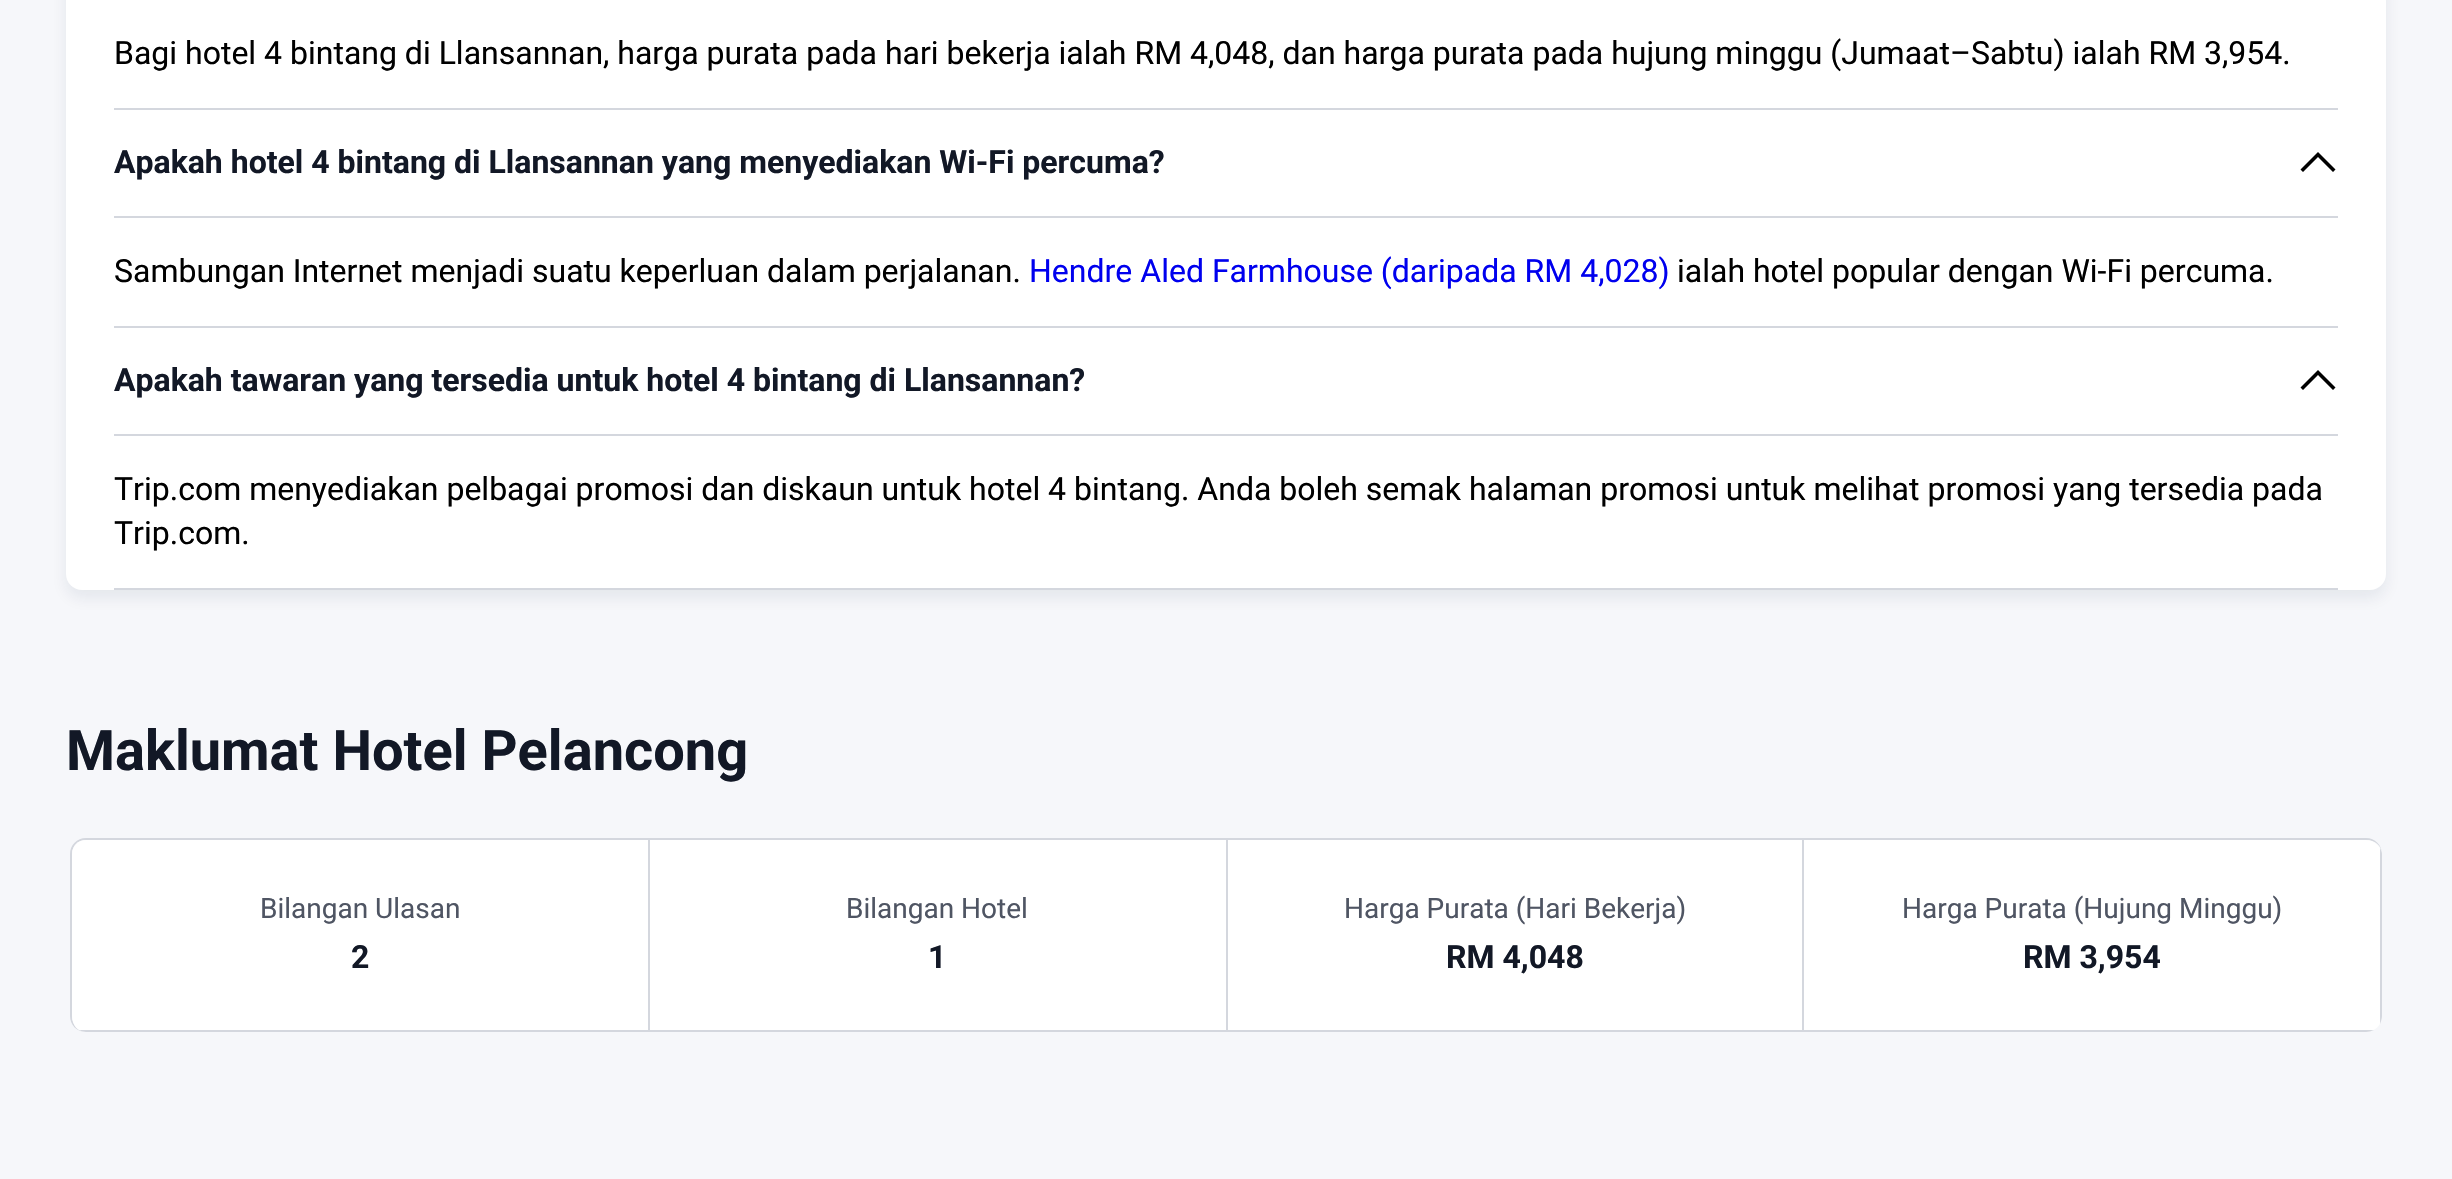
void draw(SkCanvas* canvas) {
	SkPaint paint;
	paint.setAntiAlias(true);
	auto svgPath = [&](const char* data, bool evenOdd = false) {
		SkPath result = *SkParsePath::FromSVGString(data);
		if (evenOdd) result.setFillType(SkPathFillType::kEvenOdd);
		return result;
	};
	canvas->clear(0xfff6f7fa);
	paint.setColor(0x140f294d);
	paint.setMaskFilter(SkMaskFilter::MakeBlur(kNormal_SkBlurStyle, 8));
	canvas->drawRoundRect(SkRect::MakeXYWH(66, -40, 2320, 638), 16, 16, paint);
	paint.setMaskFilter(nullptr);
	paint.setColor(0xffffffff);
	canvas->drawRoundRect(SkRect::MakeXYWH(66, -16, 2320, 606), 16, 16, paint);
	paint.setColor(0xffd4d7de);
	canvas->drawRect(SkRect::MakeXYWH(114, 108, 2224, 2), paint);
	SkFont f1(fontMgr->matchFamilyStyle("Roboto", SkFontStyle::Normal()), 32);
	f1.setSubpixel(true);
	paint.setColor(0xff000000);
	canvas->drawString("Bagi hotel 4 bintang di Llansannan, harga purata pada hari bekerja ialah RM 4,048, dan harga purata pada hujung minggu (Jumaat–Sabtu) ialah RM 3,954.", 114, 64, f1, paint);
	paint.setColor(0xffd4d7de);
	canvas->drawRect(SkRect::MakeXYWH(114, 216, 2224, 2), paint);
	SkFont f2(fontMgr->matchFamilyStyle("Roboto", SkFontStyle::Bold()), 32);
	f2.setSubpixel(true);
	paint.setColor(0xff121826);
	canvas->drawString("Apakah hotel 4 bintang di Llansannan yang menyediakan Wi-Fi percuma?", 114, 173, f2, paint);
	paint.setColor(0xff000000);
	canvas->drawPath(svgPath("M2318 157L2333 172L2335.5 169.5L2318 152L2300.5 169.5L2303 172Z"), paint);
	paint.setColor(0xffd4d7de);
	canvas->drawRect(SkRect::MakeXYWH(114, 326, 2224, 2), paint);
	paint.setColor(0xff000000);
	canvas->drawString("Sambungan Internet menjadi suatu keperluan dalam perjalanan.", 114, 282, f1, paint);
	paint.setColor(0xff0000ee);
	canvas->drawString("Hendre Aled Farmhouse (daripada RM 4,028)", 1029, 282, f1, paint);
	paint.setColor(0xff000000);
	canvas->drawString("ialah hotel popular dengan Wi-Fi percuma.", 1677, 282, f1, paint);
	paint.setColor(0xffd4d7de);
	canvas->drawRect(SkRect::MakeXYWH(114, 434, 2224, 2), paint);
	paint.setColor(0xff121826);
	canvas->drawString("Apakah tawaran yang tersedia untuk hotel 4 bintang di Llansannan?", 114, 391, f2, paint);
	paint.setColor(0xff000000);
	canvas->drawPath(svgPath("M2318 375L2333 390L2335.5 387.5L2318 370L2300.5 387.5L2303 390Z"), paint);
	paint.setColor(0xffd4d7de);
	canvas->drawRect(SkRect::MakeXYWH(114, 588, 2224, 2), paint);
	paint.setColor(0xff000000);
	canvas->drawString("Trip.com menyediakan pelbagai promosi dan diskaun untuk hotel 4 bintang. Anda boleh semak halaman promosi untuk melihat promosi yang tersedia pada", 114, 500, f1, paint);
	canvas->drawString("Trip.com.", 114, 544, f1, paint);
	SkFont f3(fontMgr->matchFamilyStyle("Roboto", SkFontStyle::Bold()), 56);
	f3.setSubpixel(true);
	paint.setColor(0xff121826);
	canvas->drawString("Maklumat Hotel Pelancong", 66, 770, f3, paint);
	paint.setColor(0xffd4d7de);
	canvas->drawPath(svgPath("M86 838H2366C2375 838 2382 845 2382 854V1016C2382 1025 2375 1032 2366 1032H86C77 1032 70 1025 70 1016V854C70 845 77 838 86 838ZM86 840H2366C2375 840 2382 846 2382 854V1016C2382 1025 2375 1032 2366 1032H86C78 1032 72 1025 72 1016V854C72 846 78 840 86 840Z", true), paint);
	paint.setColor(0xffffffff);
	canvas->drawPath(svgPath("M86 840C78 840 72 846 72 854V1016C72 1025 78 1032 86 1032H650V840Z"), paint);
	paint.setColor(0xffd4d7de);
	canvas->drawRect(SkRect::MakeXYWH(648, 840, 2, 192), paint);
	canvas->drawPath(svgPath("M86 1032H650V1030H79C81 1031 84 1032 86 1032Z"), paint);
	SkFont f4(fontMgr->matchFamilyStyle("Roboto", SkFontStyle::Normal()), 28);
	f4.setSubpixel(true);
	paint.setColor(0xff4f5563);
	canvas->drawString("Bilangan Ulasan", 260, 918, f4, paint);
	paint.setColor(0xff121826);
	canvas->drawString("2", 351, 968, f2, paint);
	paint.setColor(0xffffffff);
	canvas->drawRect(SkRect::MakeXYWH(650, 840, 576, 190), paint);
	paint.setColor(0xffd4d7de);
	canvas->drawRect(SkRect::MakeXYWH(1226, 840, 2, 192), paint);
	canvas->drawRect(SkRect::MakeXYWH(650, 1030, 578, 2), paint);
	paint.setColor(0xff4f5563);
	canvas->drawString("Bilangan Hotel", 846, 918, f4, paint);
	paint.setColor(0xff121826);
	canvas->drawString("1", 928, 968, f2, paint);
	paint.setColor(0xffffffff);
	canvas->drawRect(SkRect::MakeXYWH(1228, 840, 574, 190), paint);
	paint.setColor(0xffd4d7de);
	canvas->drawRect(SkRect::MakeXYWH(1802, 840, 2, 192), paint);
	canvas->drawRect(SkRect::MakeXYWH(1228, 1030, 576, 2), paint);
	paint.setColor(0xff4f5563);
	canvas->drawString("Harga Purata (Hari Bekerja)", 1344, 918, f4, paint);
	paint.setColor(0xff121826);
	canvas->drawString("RM 4,048", 1446, 968, f2, paint);
	paint.setColor(0xffffffff);
	canvas->drawPath(svgPath("M1804 840V1032H2366C2375 1032 2382 1025 2382 1016V856C2382 847 2375 840 2366 840Z"), paint);
	paint.setColor(0xffd4d7de);
	canvas->drawPath(svgPath("M2380 848V1024C2381 1021 2382 1019 2382 1016V854C2382 852 2381 850 2380 848Z"), paint);
	canvas->drawPath(svgPath("M1804 1030V1032H2366C2369 1032 2371 1031 2374 1030Z"), paint);
	paint.setColor(0xff4f5563);
	canvas->drawString("Harga Purata (Hujung Minggu)", 1902, 918, f4, paint);
	paint.setColor(0xff121826);
	canvas->drawString("RM 3,954", 2023, 968, f2, paint);
}
